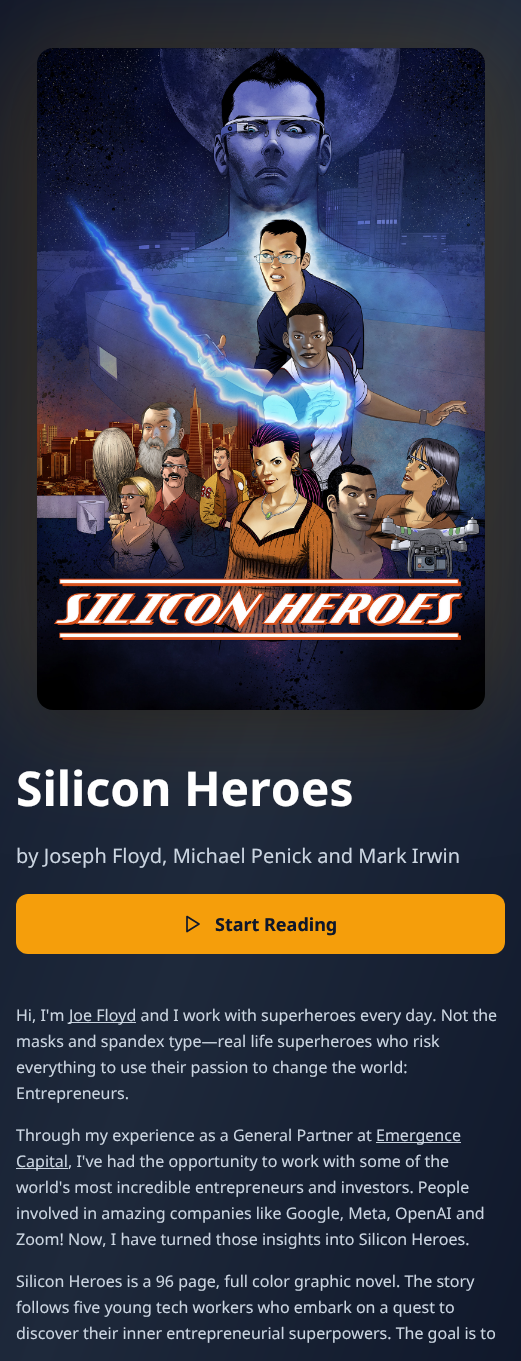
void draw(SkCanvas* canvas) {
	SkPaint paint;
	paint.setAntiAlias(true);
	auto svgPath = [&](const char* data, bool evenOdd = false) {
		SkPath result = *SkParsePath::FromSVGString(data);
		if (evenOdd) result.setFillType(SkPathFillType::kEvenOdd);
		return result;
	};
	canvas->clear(0xffffffff);
	{
		const SkColor colors[] = {0xff0f172a, 0xff1e293b, 0xff0f172a};
		const float stops[] = {0, 0.5, 1};
		const SkPoint ends[] = {{-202, 566}, {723, 896}};
		paint.setShader(SkGradientShader::MakeLinear(ends, colors, stops, 3, SkTileMode::kClamp));
		paint.setAlpha(255);
	}
	canvas->drawRect(SkRect::MakeXYWH(0, 0, 521, 1361), paint);
	paint.setShader(nullptr);
	paint.setColor(0xfff59e0b);
	canvas->drawRoundRect(SkRect::MakeXYWH(16, 894, 489, 60), 12, 12, paint);
	paint.setColor(0x33f59e0b);
	paint.setMaskFilter(SkMaskFilter::MakeBlur(kNormal_SkBlurStyle, 64));
	canvas->drawRoundRect(SkRect::MakeXYWH(16, 48, 489, 662), 16, 16, paint);
	paint.setMaskFilter(nullptr);
	paint.setColor(0x40000000);
	paint.setMaskFilter(SkMaskFilter::MakeBlur(kNormal_SkBlurStyle, 25));
	canvas->drawRoundRect(SkRect::MakeXYWH(49, 85, 424, 638), 4, 4, paint);
	paint.setMaskFilter(nullptr);
	canvas->drawImageRect(SkImages::DeferredFromEncodedData(SkData::MakeFromFileName("img1.png")), SkRect::MakeXYWH(37, 48, 448, 662), SkSamplingOptions());
	SkFont f1(fontMgr->matchFamilyStyle("Noto Sans", SkFontStyle::Bold()), 48);
	f1.setSubpixel(true);
	paint.setColor(0xffffffff);
	canvas->drawString("Silicon Heroes", 16, 806, f1, paint);
	SkFont f2(fontMgr->matchFamilyStyle("Noto Sans", SkFontStyle::Normal()), 20);
	f2.setSubpixel(true);
	paint.setColor(0xffcbd5e1);
	canvas->drawString("by Joseph Floyd, Michael Penick and Mark Irwin", 16, 863, f2, paint);
	paint.setStroke(true);
	paint.setStrokeWidth(1.7);
	paint.setStrokeCap(SkPaint::kRound_Cap);
	paint.setStrokeJoin(SkPaint::kRound_Join);
	paint.setColor(0xff0f172a);
	canvas->drawPath(svgPath("M187 916.5L199 924L187 931.5Z"), paint);
	SkFont f3(fontMgr->matchFamilyStyle("Noto Sans", SkFontStyle::Bold()), 18);
	f3.setSubpixel(true);
	paint.setStroke(false);
	canvas->drawString("Start Reading", 215, 931, f3, paint);
	SkFont f4(fontMgr->matchFamilyStyle("Noto Sans", SkFontStyle::Normal()), 16);
	f4.setSubpixel(true);
	paint.setColor(0xffcbd5e1);
	canvas->drawString("Hi, I'm", 16, 1021, f4, paint);
	canvas->drawRect(SkRect::MakeXYWH(69, 1022, 67, 1), paint);
	canvas->drawString("Joe Floyd and I work with superheroes every day. Not the", 69, 1021, f4, paint);
	canvas->drawString("masks and spandex type—real life superheroes who risk", 16, 1047, f4, paint);
	canvas->drawString("everything to use their passion to change the world:", 16, 1073, f4, paint);
	canvas->drawString("Entrepreneurs.", 16, 1099, f4, paint);
	canvas->drawString("Through my experience as a General Partner at", 16, 1141, f4, paint);
	canvas->drawRect(SkRect::MakeXYWH(376, 1142, 85, 1), paint);
	canvas->drawString("Emergence", 376, 1141, f4, paint);
	canvas->drawRect(SkRect::MakeXYWH(16, 1168, 52, 1), paint);
	canvas->drawString("Capital, I've had the opportunity to work with some of the", 16, 1167, f4, paint);
	canvas->drawString("world's most incredible entrepreneurs and investors. People", 16, 1193, f4, paint);
	canvas->drawString("involved in amazing companies like Google, Meta, OpenAI and", 16, 1219, f4, paint);
	canvas->drawString("Zoom! Now, I have turned those insights into Silicon Heroes.", 16, 1245, f4, paint);
	canvas->drawString("Silicon Heroes is a 96 page, full color graphic novel. The story", 16, 1287, f4, paint);
	canvas->drawString("follows five young tech workers who embark on a quest to", 16, 1313, f4, paint);
	canvas->drawString("discover their inner entrepreneurial superpowers. The goal is to", 16, 1339, f4, paint);
}
